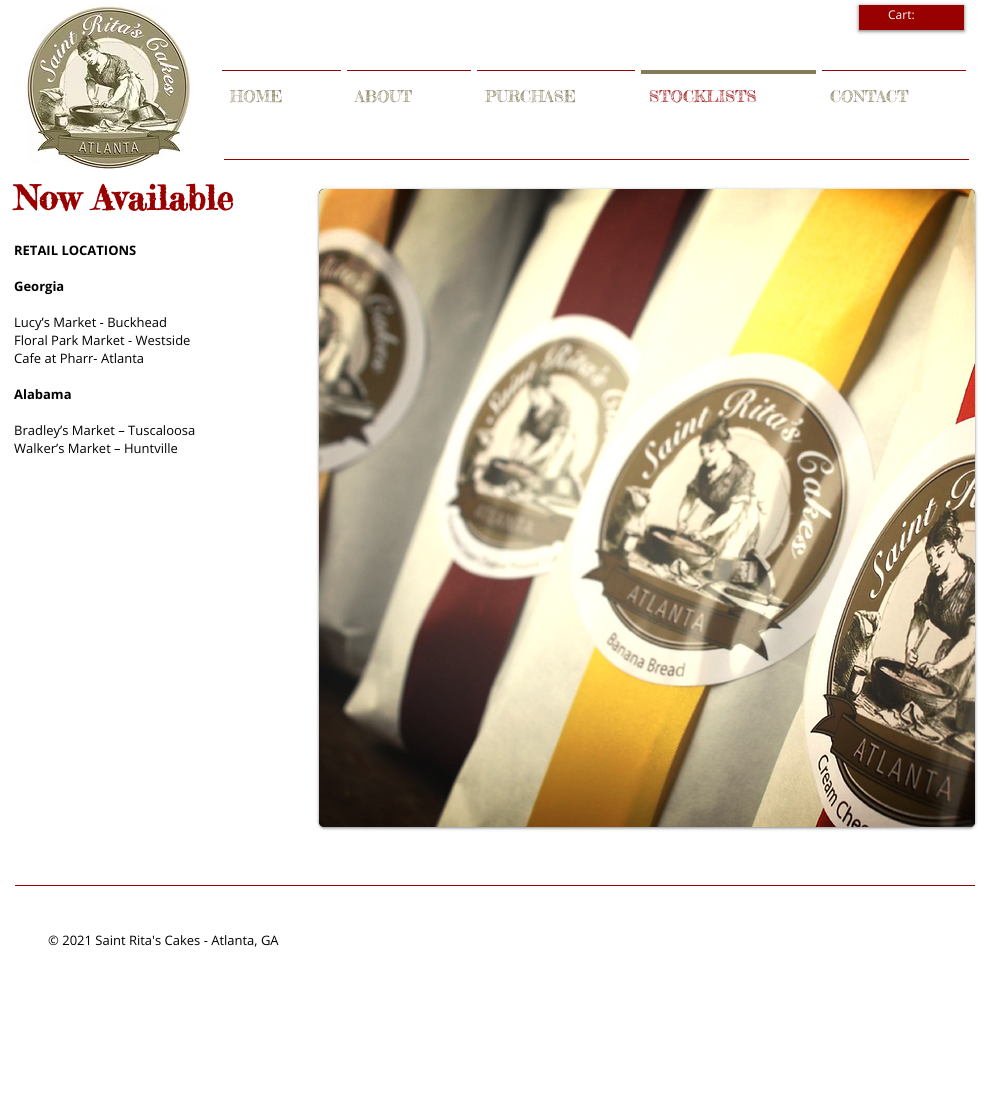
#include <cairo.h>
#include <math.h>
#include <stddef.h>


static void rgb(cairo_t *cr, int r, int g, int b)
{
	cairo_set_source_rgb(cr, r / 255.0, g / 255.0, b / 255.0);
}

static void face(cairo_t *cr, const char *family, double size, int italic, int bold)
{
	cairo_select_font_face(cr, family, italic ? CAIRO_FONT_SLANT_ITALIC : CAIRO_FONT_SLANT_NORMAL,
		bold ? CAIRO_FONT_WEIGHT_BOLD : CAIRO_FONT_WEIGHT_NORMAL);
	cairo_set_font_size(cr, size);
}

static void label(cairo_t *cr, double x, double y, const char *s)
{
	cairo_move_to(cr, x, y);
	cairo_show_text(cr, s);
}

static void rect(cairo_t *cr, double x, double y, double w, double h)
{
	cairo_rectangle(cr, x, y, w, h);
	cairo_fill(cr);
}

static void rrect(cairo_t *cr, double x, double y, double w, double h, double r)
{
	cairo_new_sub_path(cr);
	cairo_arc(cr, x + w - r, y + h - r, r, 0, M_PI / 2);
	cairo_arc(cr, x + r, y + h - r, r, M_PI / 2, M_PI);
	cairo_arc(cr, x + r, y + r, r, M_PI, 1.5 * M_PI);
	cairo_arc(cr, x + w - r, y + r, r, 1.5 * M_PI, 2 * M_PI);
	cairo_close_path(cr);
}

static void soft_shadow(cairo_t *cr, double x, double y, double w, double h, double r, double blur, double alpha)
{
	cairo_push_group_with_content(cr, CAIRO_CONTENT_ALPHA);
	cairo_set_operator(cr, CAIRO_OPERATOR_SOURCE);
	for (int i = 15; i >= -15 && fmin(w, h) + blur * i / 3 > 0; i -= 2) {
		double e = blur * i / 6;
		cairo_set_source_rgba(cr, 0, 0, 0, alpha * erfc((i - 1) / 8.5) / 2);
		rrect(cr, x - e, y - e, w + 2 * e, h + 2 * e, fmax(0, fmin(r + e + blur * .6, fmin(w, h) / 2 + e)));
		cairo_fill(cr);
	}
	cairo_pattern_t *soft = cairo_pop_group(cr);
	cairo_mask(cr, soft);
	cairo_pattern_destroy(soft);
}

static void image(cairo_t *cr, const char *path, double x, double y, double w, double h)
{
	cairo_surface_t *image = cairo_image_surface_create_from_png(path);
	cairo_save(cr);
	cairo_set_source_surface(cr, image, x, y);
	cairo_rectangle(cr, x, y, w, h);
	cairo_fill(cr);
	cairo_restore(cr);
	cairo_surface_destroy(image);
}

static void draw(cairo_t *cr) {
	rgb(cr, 255, 255, 255);
	cairo_paint(cr);
	image(cr, "image0.png", 26, 5, 165, 164);
	rgb(cr, 153, 0, 0);
	rect(cr, 224, 159, 745, 1);
	rgb(cr, 0, 0, 0);
	soft_shadow(cr, 859, 6, 105, 25, 0, 2, 0.6);
	rgb(cr, 153, 0, 0);
	rect(cr, 859, 5, 105, 25);
	face(cr, "Open Sans", 12, 0, 0);
	rgb(cr, 255, 255, 255);
	label(cr, 888, 19, "Cart:");
	rgb(cr, 153, 0, 0);
	rect(cr, 222, 70, 119, 1);
	face(cr, "Fredericka the Great", 16, 0, 0);
	rgb(cr, 132, 122, 87);
	label(cr, 230, 102, "HOME");
	rgb(cr, 153, 0, 0);
	rect(cr, 347, 70, 124, 1);
	rgb(cr, 132, 122, 87);
	label(cr, 355, 102, "ABOUT");
	rgb(cr, 153, 0, 0);
	rect(cr, 477, 70, 158, 1);
	rgb(cr, 132, 122, 87);
	label(cr, 485, 102, "PURCHASE");
	rect(cr, 641, 70, 175, 4);
	rgb(cr, 153, 0, 0);
	label(cr, 649, 102, "STOCKLISTS");
	rect(cr, 822, 70, 144, 1);
	rgb(cr, 132, 122, 87);
	label(cr, 830, 102, "CONTACT");
	face(cr, "Fredericka the Great", 34, 0, 1);
	rgb(cr, 153, 0, 0);
	label(cr, 14, 210, "Now Available");
	rgb(cr, 0, 0, 0);
	soft_shadow(cr, 319, 190, 656, 638, 5, 1.5, 0.5);
	rgb(cr, 0, 0, 0);
	rrect(cr, 319, 189, 656, 638, 5);
	cairo_fill(cr);
	image(cr, "image1.png", 319, 189, 656, 638);
	face(cr, "Open Sans", 13, 0, 1);
	label(cr, 14, 255, "RETAIL LOCATIONS");
	label(cr, 14, 291, "Georgia");
	face(cr, "Open Sans", 13, 0, 0);
	label(cr, 14, 327, "Lucy’s Market - Buckhead");
	label(cr, 14, 345, "Floral Park Market - Westside");
	label(cr, 14, 363, "Cafe at Pharr- Atlanta");
	face(cr, "Open Sans", 13, 0, 1);
	label(cr, 14, 399, "Alabama");
	face(cr, "Open Sans", 13, 0, 0);
	label(cr, 14, 435, "Bradley’s Market – Tuscaloosa");
	label(cr, 14, 453, "Walker’s Market – Huntville");
	rgb(cr, 153, 0, 0);
	rect(cr, 15, 885, 960, 1);
	rgb(cr, 0, 0, 0);
	label(cr, 48, 945, "© 2021 Saint Rita's Cakes - Atlanta, GA");
}

int main(void) {
	cairo_surface_t *surface = cairo_image_surface_create(CAIRO_FORMAT_RGB24, 988, 1096);
	cairo_t *cr = cairo_create(surface);
	cairo_font_options_t *options = cairo_font_options_create();
	cairo_font_options_set_hint_metrics(options, CAIRO_HINT_METRICS_OFF);
	cairo_font_options_set_hint_style(options, CAIRO_HINT_STYLE_NONE);
	cairo_set_font_options(cr, options);
	cairo_set_miter_limit(cr, 4);
	draw(cr);
	cairo_surface_write_to_png(surface, "render.png");
	cairo_font_options_destroy(options);
	cairo_destroy(cr);
	cairo_surface_destroy(surface);
	return 0;
}
